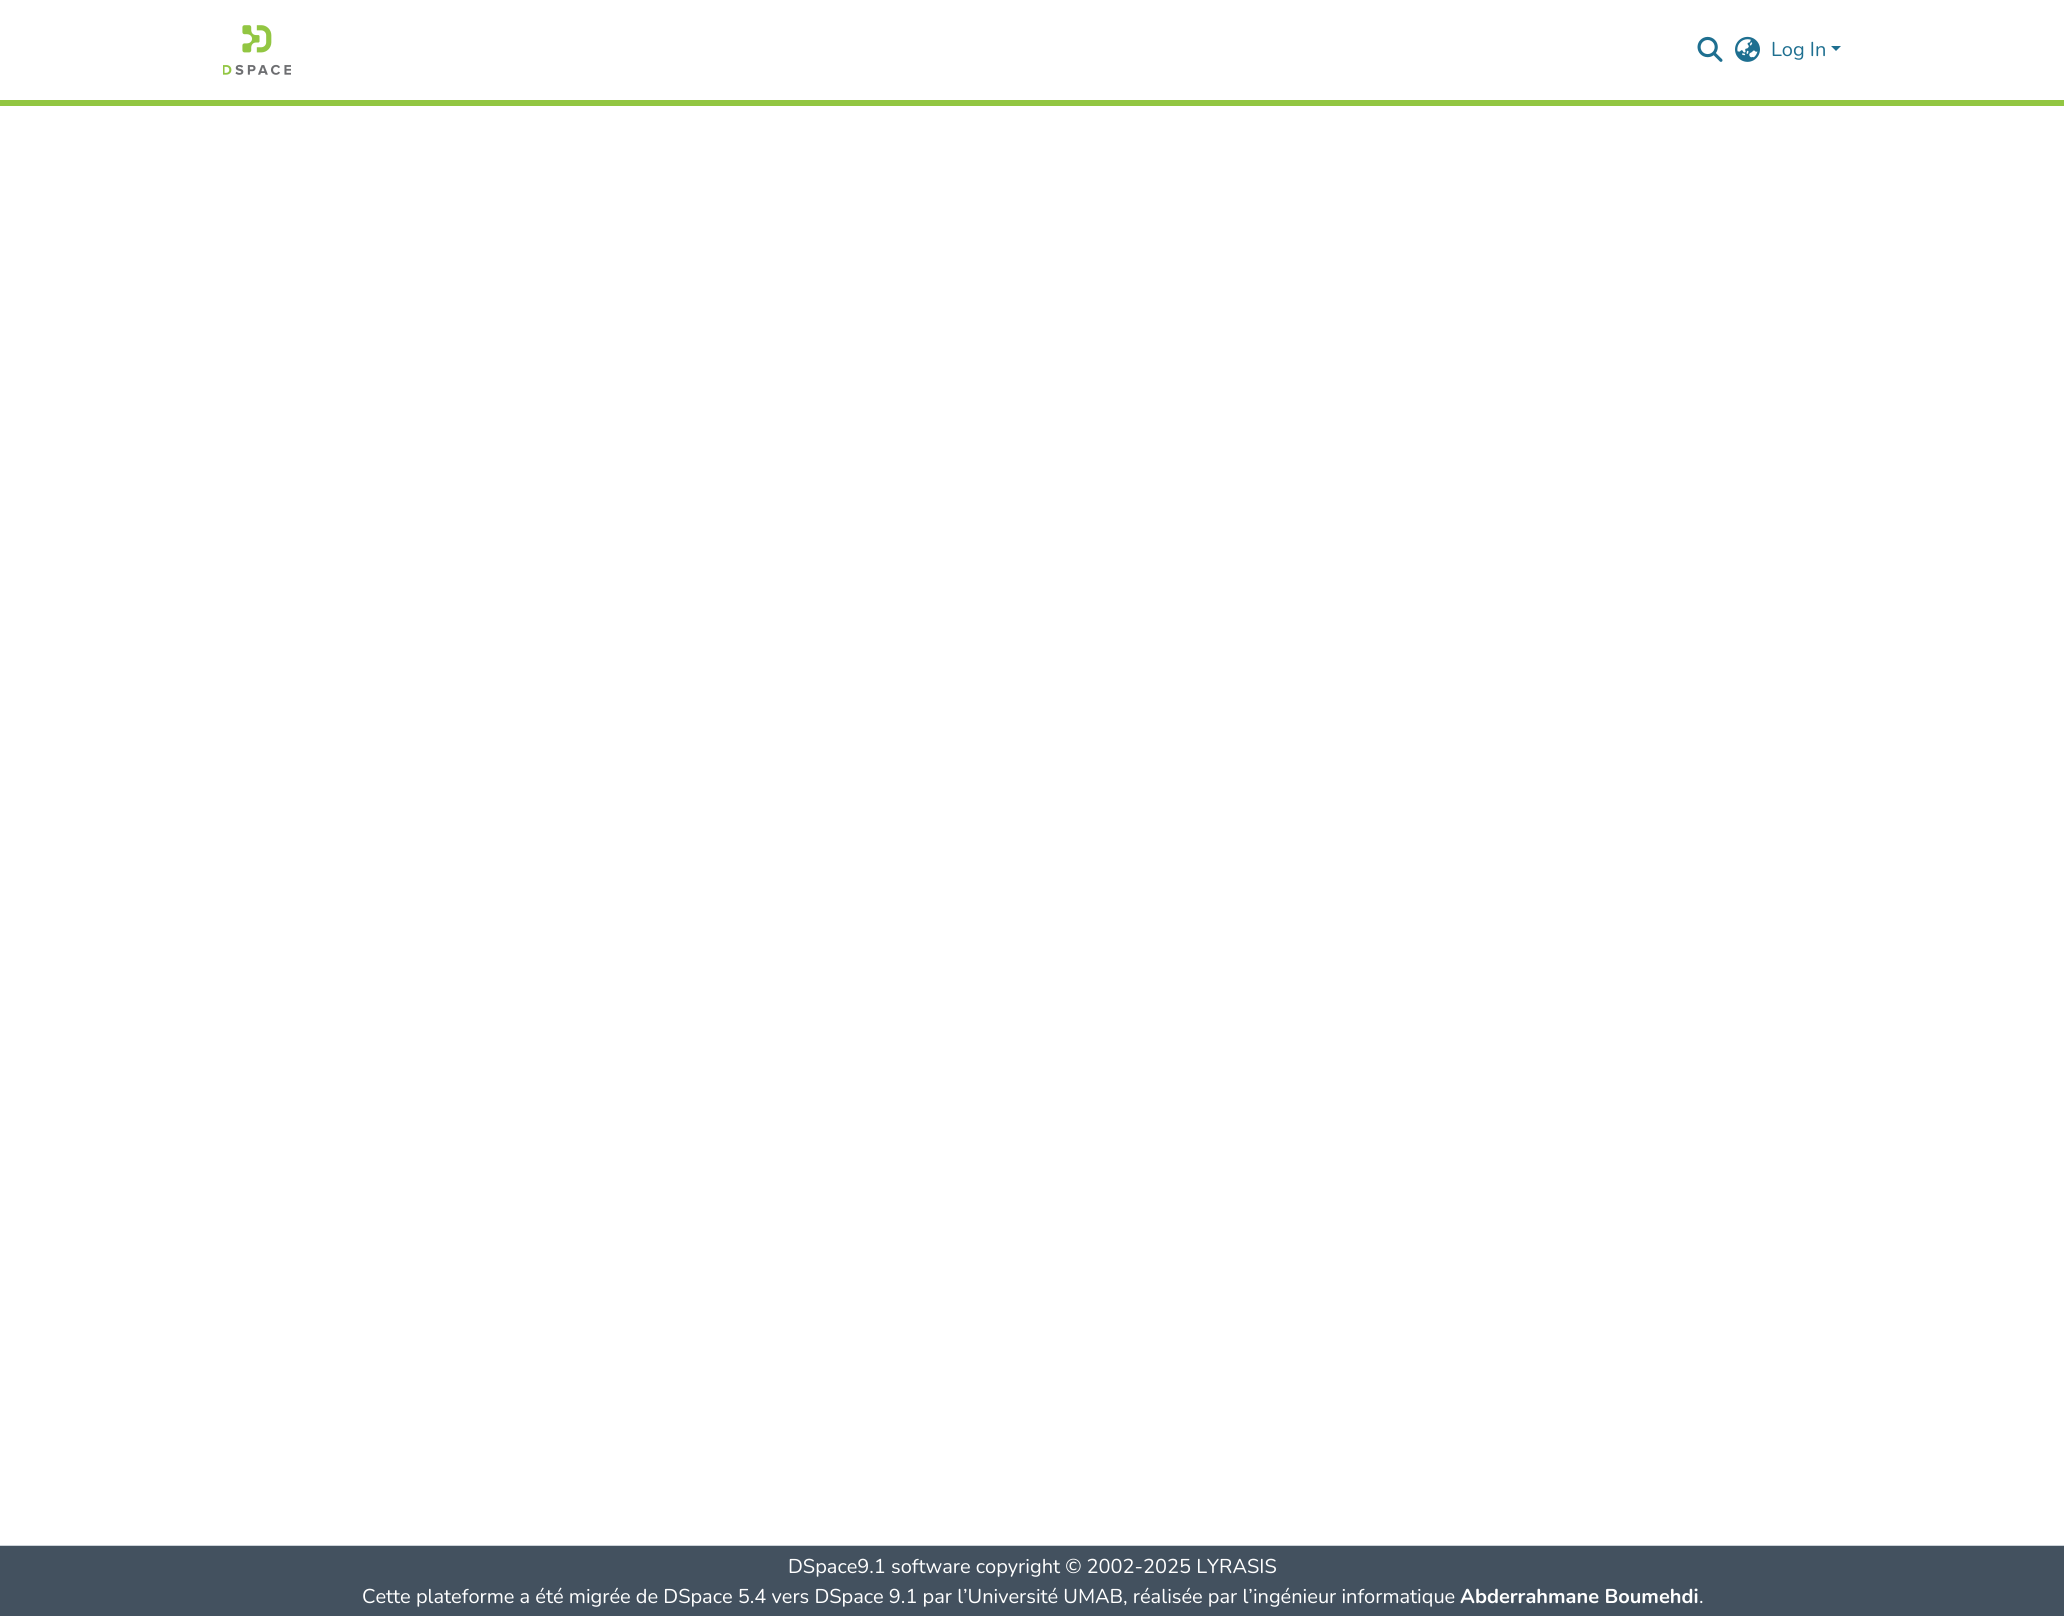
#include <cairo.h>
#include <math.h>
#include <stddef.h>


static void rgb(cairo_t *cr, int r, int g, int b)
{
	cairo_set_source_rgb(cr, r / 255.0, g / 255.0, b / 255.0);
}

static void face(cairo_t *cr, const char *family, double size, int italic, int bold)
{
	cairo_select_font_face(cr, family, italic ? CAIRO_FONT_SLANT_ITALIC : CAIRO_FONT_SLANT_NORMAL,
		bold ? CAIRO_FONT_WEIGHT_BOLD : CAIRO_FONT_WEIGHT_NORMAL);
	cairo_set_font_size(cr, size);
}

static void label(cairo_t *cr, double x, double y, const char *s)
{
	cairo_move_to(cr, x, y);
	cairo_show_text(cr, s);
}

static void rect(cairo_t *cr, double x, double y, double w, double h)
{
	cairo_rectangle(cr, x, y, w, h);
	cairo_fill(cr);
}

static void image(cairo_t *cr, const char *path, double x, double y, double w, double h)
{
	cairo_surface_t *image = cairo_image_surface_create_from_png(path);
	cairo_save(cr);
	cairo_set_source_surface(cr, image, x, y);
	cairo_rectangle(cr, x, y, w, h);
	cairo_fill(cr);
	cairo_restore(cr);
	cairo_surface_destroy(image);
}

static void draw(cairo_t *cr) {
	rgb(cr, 255, 255, 255);
	cairo_paint(cr);
	rgb(cr, 146, 198, 66);
	rect(cr, 0, 100, 2064, 6);
	image(cr, "image0.png", 223, 25, 68, 50);
	image(cr, "image1.png", 1697, 36, 26, 26);
	image(cr, "image2.png", 1735, 36, 25, 26);
	face(cr, "Nunito", 20, 0, 0);
	rgb(cr, 30, 111, 144);
	label(cr, 1771, 56, "Log In");
	cairo_new_path(cr);
	cairo_move_to(cr, 1831, 46);
	cairo_line_to(cr, 1841, 46);
	cairo_line_to(cr, 1836, 51);
	cairo_close_path(cr);
	cairo_fill(cr);
	rgb(cr, 67, 81, 95);
	rect(cr, 0, 1546, 2064, 70);
	rgb(cr, 206, 212, 218);
	rect(cr, 0, 1545, 2064, 1);
	rgb(cr, 255, 255, 255);
	label(cr, 788, 1573, "DSpace9.1 software copyright © 2002-2025 LYRASIS");
	label(cr, 362, 1603, "Cette plateforme a été migrée de DSpace 5.4 vers DSpace 9.1 par l’Université UMAB, réalisée par l’ingénieur informatique");
	face(cr, "Nunito", 20, 0, 1);
	label(cr, 1460, 1603, "Abderrahmane Boumehdi");
	face(cr, "Nunito", 20, 0, 0);
	label(cr, 1699, 1603, ".");
}

int main(void) {
	cairo_surface_t *surface = cairo_image_surface_create(CAIRO_FORMAT_RGB24, 2064, 1616);
	cairo_t *cr = cairo_create(surface);
	cairo_font_options_t *options = cairo_font_options_create();
	cairo_font_options_set_hint_metrics(options, CAIRO_HINT_METRICS_OFF);
	cairo_font_options_set_hint_style(options, CAIRO_HINT_STYLE_NONE);
	cairo_set_font_options(cr, options);
	cairo_set_miter_limit(cr, 4);
	draw(cr);
	cairo_surface_write_to_png(surface, "render.png");
	cairo_font_options_destroy(options);
	cairo_destroy(cr);
	cairo_surface_destroy(surface);
	return 0;
}
